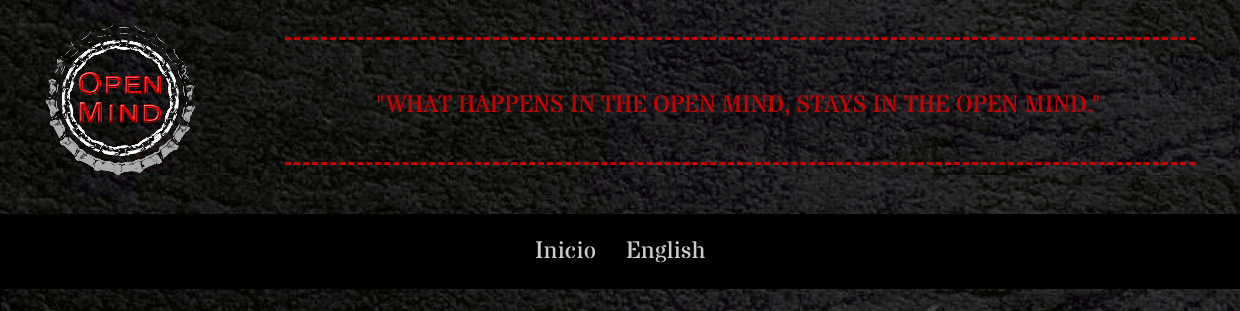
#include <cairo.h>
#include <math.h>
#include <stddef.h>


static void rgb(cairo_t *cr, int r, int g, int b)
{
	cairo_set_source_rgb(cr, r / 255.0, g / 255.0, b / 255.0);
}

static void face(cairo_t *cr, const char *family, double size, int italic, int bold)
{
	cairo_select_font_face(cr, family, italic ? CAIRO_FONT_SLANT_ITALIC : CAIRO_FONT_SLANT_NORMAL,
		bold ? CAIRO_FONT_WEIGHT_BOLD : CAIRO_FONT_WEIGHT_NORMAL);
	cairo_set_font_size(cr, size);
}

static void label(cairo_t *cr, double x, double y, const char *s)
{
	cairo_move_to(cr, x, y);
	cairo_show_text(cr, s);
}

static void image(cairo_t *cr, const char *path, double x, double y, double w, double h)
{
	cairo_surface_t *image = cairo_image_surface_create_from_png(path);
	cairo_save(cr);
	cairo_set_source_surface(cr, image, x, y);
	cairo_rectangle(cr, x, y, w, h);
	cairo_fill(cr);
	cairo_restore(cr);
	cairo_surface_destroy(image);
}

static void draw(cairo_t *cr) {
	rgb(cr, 0, 0, 0);
	cairo_paint(cr);
	image(cr, "image0.png", 0, 0, 1240, 214);
	image(cr, "image1.png", 46, 25, 149, 150);
	cairo_new_path(cr);
	cairo_move_to(cr, 285, 38.5);
	cairo_line_to(cr, 1195, 38.5);
	rgb(cr, 199, 0, 0);
	cairo_set_line_width(cr, 3);
	cairo_set_dash(cr, (double[]){6, 3.04}, 2, 0);
	cairo_stroke(cr);
	cairo_new_path(cr);
	cairo_move_to(cr, 285, 163.5);
	cairo_line_to(cr, 1195, 163.5);
	cairo_stroke(cr);
	face(cr, "Stardos Stencil", 24, 0, 0);
	label(cr, 377, 112, "\"WHAT HAPPENS IN THE OPEN MIND, STAYS IN THE OPEN MIND.\"");
	rgb(cr, 204, 204, 204);
	label(cr, 535, 258, "Inicio");
	label(cr, 626, 258, "English");
	image(cr, "image2.png", 1, 289, 1239, 22);
}

int main(void) {
	cairo_surface_t *surface = cairo_image_surface_create(CAIRO_FORMAT_RGB24, 1240, 311);
	cairo_t *cr = cairo_create(surface);
	cairo_font_options_t *options = cairo_font_options_create();
	cairo_font_options_set_hint_metrics(options, CAIRO_HINT_METRICS_OFF);
	cairo_font_options_set_hint_style(options, CAIRO_HINT_STYLE_NONE);
	cairo_set_font_options(cr, options);
	cairo_set_miter_limit(cr, 4);
	draw(cr);
	cairo_surface_write_to_png(surface, "render.png");
	cairo_font_options_destroy(options);
	cairo_destroy(cr);
	cairo_surface_destroy(surface);
	return 0;
}
